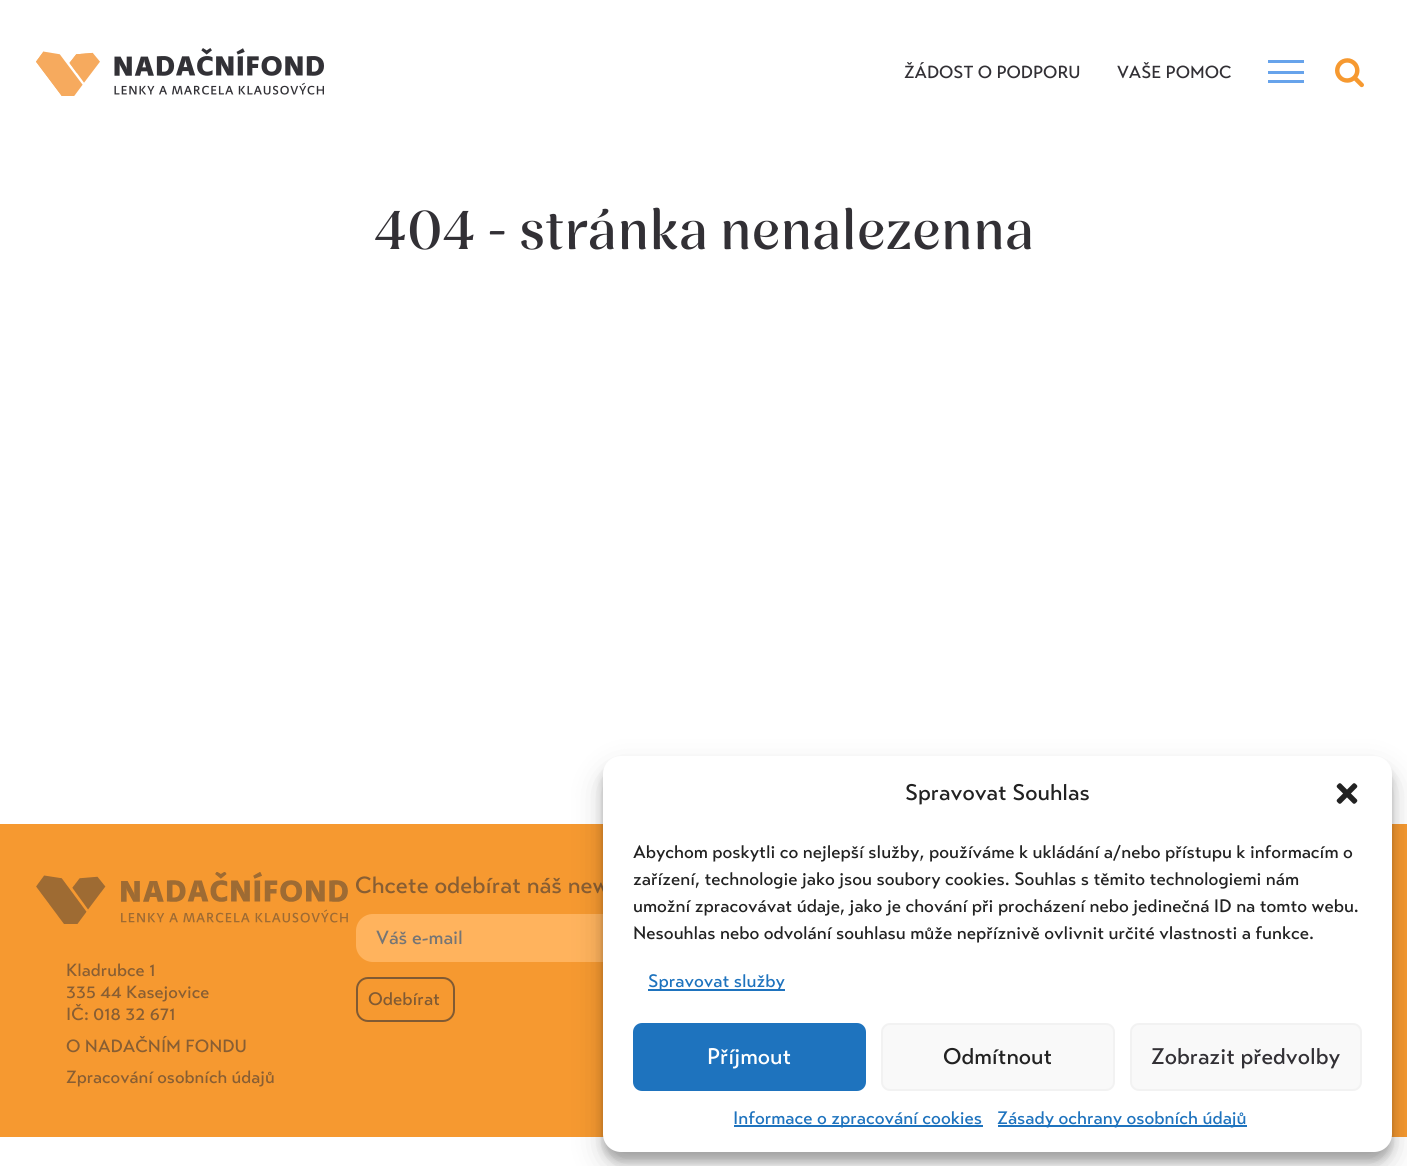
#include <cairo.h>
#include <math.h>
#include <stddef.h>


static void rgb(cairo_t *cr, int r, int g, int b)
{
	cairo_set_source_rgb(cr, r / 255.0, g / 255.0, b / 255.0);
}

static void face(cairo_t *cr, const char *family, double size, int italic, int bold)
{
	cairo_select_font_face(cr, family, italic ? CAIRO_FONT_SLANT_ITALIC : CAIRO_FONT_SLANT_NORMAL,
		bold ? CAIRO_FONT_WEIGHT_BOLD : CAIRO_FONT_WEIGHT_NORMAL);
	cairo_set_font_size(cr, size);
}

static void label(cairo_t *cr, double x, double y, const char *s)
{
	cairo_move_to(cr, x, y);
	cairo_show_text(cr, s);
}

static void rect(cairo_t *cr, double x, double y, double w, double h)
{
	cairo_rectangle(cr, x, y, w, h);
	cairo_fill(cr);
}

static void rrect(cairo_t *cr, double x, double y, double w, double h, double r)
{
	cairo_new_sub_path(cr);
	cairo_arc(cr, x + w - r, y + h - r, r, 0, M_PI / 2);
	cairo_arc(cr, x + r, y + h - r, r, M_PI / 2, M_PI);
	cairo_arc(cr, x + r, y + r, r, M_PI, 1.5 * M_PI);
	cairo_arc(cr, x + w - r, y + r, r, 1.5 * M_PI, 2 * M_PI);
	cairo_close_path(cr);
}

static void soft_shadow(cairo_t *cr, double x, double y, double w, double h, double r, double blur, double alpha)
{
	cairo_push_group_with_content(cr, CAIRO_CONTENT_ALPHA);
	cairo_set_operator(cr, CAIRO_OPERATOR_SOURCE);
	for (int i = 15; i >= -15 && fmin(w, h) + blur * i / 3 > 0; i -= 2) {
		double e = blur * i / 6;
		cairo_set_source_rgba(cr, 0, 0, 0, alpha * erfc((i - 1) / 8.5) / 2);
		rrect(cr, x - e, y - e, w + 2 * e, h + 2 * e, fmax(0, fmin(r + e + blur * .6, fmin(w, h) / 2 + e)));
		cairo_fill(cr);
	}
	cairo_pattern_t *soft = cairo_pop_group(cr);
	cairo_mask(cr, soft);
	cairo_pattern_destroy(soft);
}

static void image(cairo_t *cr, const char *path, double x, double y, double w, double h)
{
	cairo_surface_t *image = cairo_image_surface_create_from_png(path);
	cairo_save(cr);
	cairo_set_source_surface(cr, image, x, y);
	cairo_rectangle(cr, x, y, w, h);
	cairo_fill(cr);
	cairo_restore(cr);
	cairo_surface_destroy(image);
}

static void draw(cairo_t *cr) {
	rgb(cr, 255, 255, 255);
	cairo_paint(cr);
	image(cr, "image0.png", 36, 48, 288, 48);
	face(cr, "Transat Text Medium", 17.4, 0, 0);
	rgb(cr, 50, 48, 53);
	label(cr, 904, 78, "ŽÁDOST O PODPORU");
	label(cr, 1117, 78, "VAŠE POMOC");
	rgb(cr, 103, 163, 235);
	rect(cr, 1268, 60, 36, 3);
	rect(cr, 1268, 71, 36, 3);
	rect(cr, 1268, 80, 36, 3);
	image(cr, "image1.png", 1335, 58, 29, 30);
	face(cr, "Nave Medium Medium", 54.4, 0, 0);
	rgb(cr, 50, 48, 53);
	label(cr, 374, 249, "404 - stránka nenalezenna");
	rgb(cr, 246, 153, 48);
	rect(cr, 0, 824, 1407, 313);
	face(cr, "Transat Text Medium", 23.25, 0, 0);
	rgb(cr, 136, 94, 51);
	label(cr, 355, 893, "Chcete odebírat náš new");
	rgb(cr, 255, 179, 93);
	rrect(cr, 356, 914, 330, 48, 17);
	cairo_fill(cr);
	face(cr, "Transat Text Medium", 19, 0, 0);
	rgb(cr, 117, 117, 117);
	label(cr, 376, 944, "Váš e-mail");
	rrect(cr, 357, 978, 97, 43, 11);
	rgb(cr, 128, 90, 51);
	cairo_stroke(cr);
	face(cr, "Transat Text Medium", 18, 0, 0);
	label(cr, 368, 1005, "Odebírat");
	image(cr, "image2.png", 36, 872, 312, 52);
	face(cr, "Transat Text Medium", 17.6, 0, 0);
	rgb(cr, 136, 94, 51);
	label(cr, 66, 976, "Kladrubce 1");
	label(cr, 66, 998, "335 44 Kasejovice");
	label(cr, 66, 1020, "IČ: 018 32 671");
	label(cr, 66, 1052, "O NADAČNÍM FONDU");
	label(cr, 66, 1083, "Zpracování osobních údajů");
	rgb(cr, 0, 0, 0);
	soft_shadow(cr, 603, 765, 789, 396, 18, 4.5, 0.23);
	soft_shadow(cr, 603, 771, 789, 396, 18, 15, 0.19);
	rgb(cr, 255, 255, 255);
	rrect(cr, 603, 756, 789, 396, 18);
	cairo_fill(cr);
	face(cr, "Transat Text Medium", 22.5, 0, 0);
	rgb(cr, 34, 34, 34);
	label(cr, 905, 800, "Spravovat Souhlas");
	image(cr, "image3.png", 1336, 783, 22, 21);
	face(cr, "Transat Text Medium", 18, 0, 0);
	label(cr, 633, 858, "Abychom poskytli co nejlepší služby, používáme k ukládání a/nebo přístupu k informacím o");
	label(cr, 633, 885, "zařízení, technologie jako jsou soubory cookies. Souhlas s těmito technologiemi nám");
	label(cr, 633, 912, "umožní zpracovávat údaje, jako je chování při procházení nebo jedinečná ID na tomto webu.");
	label(cr, 633, 939, "Nesouhlas nebo odvolání souhlasu může nepříznivě ovlivnit určité vlastnosti a funkce.");
	rgb(cr, 30, 115, 190);
	rect(cr, 648, 989, 137, 2);
	label(cr, 648, 987, "Spravovat služby");
	rrect(cr, 634, 1024, 231, 66, 8);
	cairo_fill_preserve(cr);
	cairo_stroke(cr);
	face(cr, "Transat Text Medium", 22.5, 0, 0);
	rgb(cr, 255, 255, 255);
	label(cr, 707, 1064, "Příjmout");
	rgb(cr, 249, 249, 249);
	rrect(cr, 882, 1024, 232, 66, 8);
	cairo_fill_preserve(cr);
	rgb(cr, 242, 242, 242);
	cairo_stroke(cr);
	rgb(cr, 34, 34, 34);
	label(cr, 943, 1064, "Odmítnout");
	rgb(cr, 249, 249, 249);
	rrect(cr, 1131, 1024, 230, 66, 8);
	cairo_fill_preserve(cr);
	rgb(cr, 242, 242, 242);
	cairo_stroke(cr);
	rgb(cr, 50, 48, 53);
	label(cr, 1151, 1064, "Zobrazit předvolby");
	rgb(cr, 30, 115, 190);
	rect(cr, 734, 1125, 249, 2);
	face(cr, "Transat Text Medium", 18, 0, 0);
	label(cr, 733, 1124, "Informace o zpracování cookies");
	rect(cr, 998, 1125, 249, 2);
	label(cr, 997, 1124, "Zásady ochrany osobních údajů");
}

int main(void) {
	cairo_surface_t *surface = cairo_image_surface_create(CAIRO_FORMAT_RGB24, 1407, 1166);
	cairo_t *cr = cairo_create(surface);
	cairo_font_options_t *options = cairo_font_options_create();
	cairo_font_options_set_hint_metrics(options, CAIRO_HINT_METRICS_OFF);
	cairo_font_options_set_hint_style(options, CAIRO_HINT_STYLE_NONE);
	cairo_set_font_options(cr, options);
	cairo_set_miter_limit(cr, 4);
	draw(cr);
	cairo_surface_write_to_png(surface, "render.png");
	cairo_font_options_destroy(options);
	cairo_destroy(cr);
	cairo_surface_destroy(surface);
	return 0;
}
